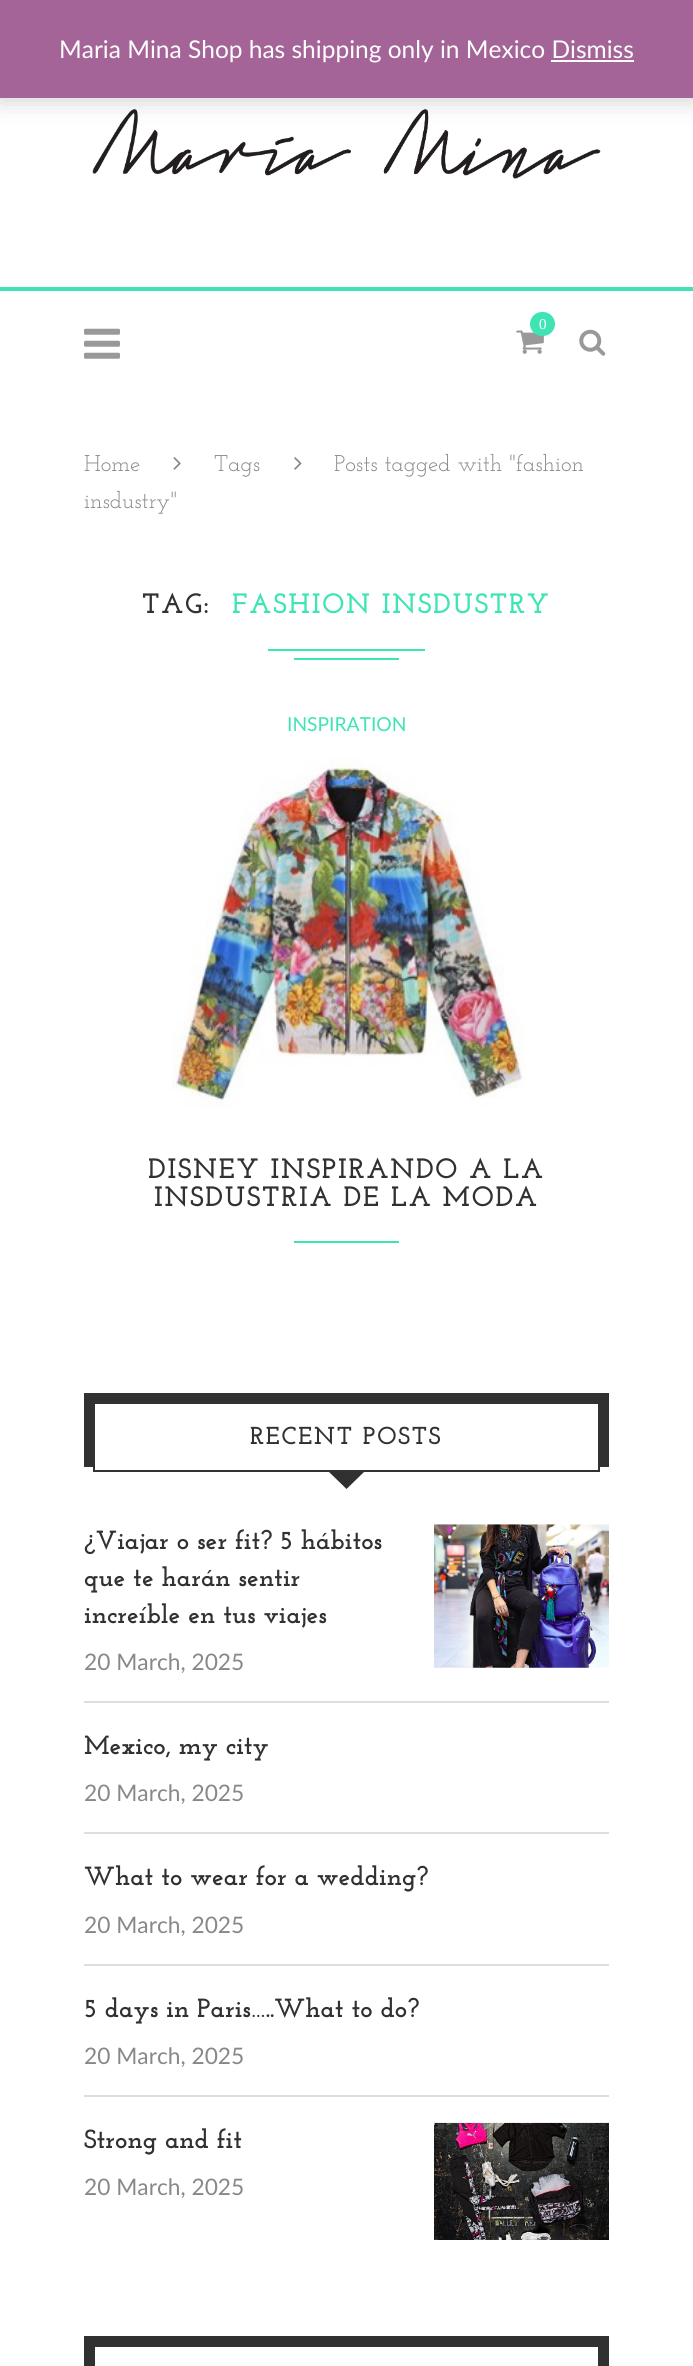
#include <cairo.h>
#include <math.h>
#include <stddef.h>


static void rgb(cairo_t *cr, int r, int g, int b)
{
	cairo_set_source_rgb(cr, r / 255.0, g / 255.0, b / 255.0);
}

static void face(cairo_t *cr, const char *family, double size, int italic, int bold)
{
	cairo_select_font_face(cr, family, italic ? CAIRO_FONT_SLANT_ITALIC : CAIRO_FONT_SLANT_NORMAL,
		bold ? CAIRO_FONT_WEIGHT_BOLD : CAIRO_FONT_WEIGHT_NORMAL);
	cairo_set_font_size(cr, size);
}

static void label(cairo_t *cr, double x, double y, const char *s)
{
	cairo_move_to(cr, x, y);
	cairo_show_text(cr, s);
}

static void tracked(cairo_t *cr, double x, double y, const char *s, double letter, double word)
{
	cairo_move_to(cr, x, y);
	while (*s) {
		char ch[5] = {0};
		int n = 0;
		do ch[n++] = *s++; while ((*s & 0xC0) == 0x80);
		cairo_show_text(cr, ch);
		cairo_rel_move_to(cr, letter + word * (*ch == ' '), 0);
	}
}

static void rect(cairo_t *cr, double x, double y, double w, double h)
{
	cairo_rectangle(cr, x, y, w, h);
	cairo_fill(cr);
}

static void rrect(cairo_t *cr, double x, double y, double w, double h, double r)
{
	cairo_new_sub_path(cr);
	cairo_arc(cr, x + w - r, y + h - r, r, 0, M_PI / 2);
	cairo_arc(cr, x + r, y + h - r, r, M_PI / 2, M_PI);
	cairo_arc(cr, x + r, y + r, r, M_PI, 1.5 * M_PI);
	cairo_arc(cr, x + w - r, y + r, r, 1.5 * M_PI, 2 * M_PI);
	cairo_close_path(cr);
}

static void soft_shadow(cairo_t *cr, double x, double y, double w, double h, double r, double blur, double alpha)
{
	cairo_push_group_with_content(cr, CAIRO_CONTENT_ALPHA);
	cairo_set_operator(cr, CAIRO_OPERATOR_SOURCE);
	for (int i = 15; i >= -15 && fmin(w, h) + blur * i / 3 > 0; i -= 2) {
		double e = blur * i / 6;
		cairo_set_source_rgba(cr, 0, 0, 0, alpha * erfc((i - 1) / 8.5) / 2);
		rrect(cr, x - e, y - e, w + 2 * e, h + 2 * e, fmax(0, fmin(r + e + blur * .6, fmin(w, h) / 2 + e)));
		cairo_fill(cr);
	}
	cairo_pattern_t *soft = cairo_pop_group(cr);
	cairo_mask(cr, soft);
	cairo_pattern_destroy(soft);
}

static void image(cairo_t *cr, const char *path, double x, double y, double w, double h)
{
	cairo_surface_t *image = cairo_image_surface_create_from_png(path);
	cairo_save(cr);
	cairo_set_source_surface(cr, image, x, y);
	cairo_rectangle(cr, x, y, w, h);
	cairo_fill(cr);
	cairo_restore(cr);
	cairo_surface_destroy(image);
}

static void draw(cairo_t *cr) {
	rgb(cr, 255, 255, 255);
	cairo_paint(cr);
	image(cr, "image0.png", 92, 109, 509, 70);
	rgb(cr, 0, 0, 0);
	soft_shadow(cr, 0, 2, 693, 98, 0, 12, 0.2);
	rgb(cr, 164, 100, 151);
	rect(cr, 0, 0, 693, 98);
	face(cr, "Lato", 24.5, 0, 0);
	rgb(cr, 255, 255, 255);
	label(cr, 59, 58, "Maria Mina Shop has shipping only in Mexico Dismiss");
	rect(cr, 551, 60, 83, 2);
	rgb(cr, 62, 228, 180);
	rect(cr, 0, 287, 693, 4);
	image(cr, "image1.png", 516, 330, 28, 24);
	rrect(cr, 530, 312, 25, 24, 12);
	cairo_fill(cr);
	face(cr, "PT Serif", 14, 0, 0);
	rgb(cr, 255, 255, 255);
	label(cr, 539, 329, "0");
	image(cr, "image2.png", 84, 328, 36, 31);
	image(cr, "image3.png", 579, 329, 27, 27);
	face(cr, "Josefin Slab", 22.75, 0, 0);
	rgb(cr, 136, 136, 136);
	label(cr, 84, 471, "Home");
	image(cr, "image4.png", 173, 457, 8, 13);
	label(cr, 214, 471, "Tags");
	image(cr, "image5.png", 294, 457, 8, 13);
	label(cr, 334, 471, "Posts tagged with \"fashion");
	label(cr, 84, 508, "insdustry\"");
	face(cr, "Josefin Slab", 28, 0, 1);
	rgb(cr, 49, 49, 49);
	tracked(cr, 142, 613, "TAG:", 1.75, 0);
	rgb(cr, 62, 228, 180);
	tracked(cr, 232, 613, "FASHION INSDUSTRY", 1.75, 0);
	rect(cr, 268, 649, 157, 2);
	rect(cr, 294, 658, 105, 2);
	face(cr, "Lato", 19.25, 0, 0);
	label(cr, 287, 731, "INSPIRATION");
	image(cr, "image6.png", 172, 758, 354, 350);
	face(cr, "Josefin Slab", 28, 0, 1);
	rgb(cr, 49, 49, 49);
	tracked(cr, 148, 1178, "DISNEY INSPIRANDO A LA", 1.75, 0);
	tracked(cr, 154, 1206, "INSDUSTRIA DE LA MODA", 1.75, 0);
	rgb(cr, 62, 228, 180);
	rect(cr, 294, 1241, 105, 2);
	rgb(cr, 49, 49, 49);
	rect(cr, 84, 1393, 525, 74);
	rgb(cr, 255, 255, 255);
	rect(cr, 95, 1404, 503, 63);
	cairo_rectangle(cr, 94, 1403, 505, 68);
	rgb(cr, 49, 49, 49);
	cairo_stroke(cr);
	face(cr, "Josefin Slab", 24.5, 0, 1);
	tracked(cr, 250, 1444, "RECENT POSTS", 1.75, 0);
	cairo_new_path(cr);
	cairo_move_to(cr, 329, 1472);
	cairo_line_to(cr, 364, 1472);
	cairo_line_to(cr, 346.5, 1489);
	cairo_close_path(cr);
	cairo_fill(cr);
	rgb(cr, 222, 222, 222);
	rect(cr, 84, 1701, 525, 2);
	face(cr, "Josefin Slab", 26.25, 0, 1);
	rgb(cr, 49, 49, 49);
	label(cr, 84, 1549, "¿Viajar o ser fit? 5 hábitos");
	label(cr, 84, 1586, "que te harán sentir");
	label(cr, 84, 1623, "increíble en tus viajes");
	face(cr, "Lato", 22.75, 0, 0);
	rgb(cr, 136, 136, 136);
	label(cr, 84, 1670, "20 March, 2025");
	image(cr, "image7.png", 434, 1524, 175, 144);
	rgb(cr, 222, 222, 222);
	rect(cr, 84, 1832, 525, 2);
	face(cr, "Josefin Slab", 26.25, 0, 1);
	rgb(cr, 49, 49, 49);
	label(cr, 84, 1754, "Mexico, my city");
	face(cr, "Lato", 22.75, 0, 0);
	rgb(cr, 136, 136, 136);
	label(cr, 84, 1801, "20 March, 2025");
	rgb(cr, 222, 222, 222);
	rect(cr, 84, 1964, 525, 2);
	face(cr, "Josefin Slab", 26.25, 0, 1);
	rgb(cr, 49, 49, 49);
	label(cr, 84, 1885, "What to wear for a wedding?");
	face(cr, "Lato", 22.75, 0, 0);
	rgb(cr, 136, 136, 136);
	label(cr, 84, 1933, "20 March, 2025");
	rgb(cr, 222, 222, 222);
	rect(cr, 84, 2095, 525, 2);
	face(cr, "Josefin Slab", 26.25, 0, 1);
	rgb(cr, 49, 49, 49);
	label(cr, 84, 2017, "5 days in Paris…..What to do?");
	face(cr, "Lato", 22.75, 0, 0);
	rgb(cr, 136, 136, 136);
	label(cr, 84, 2064, "20 March, 2025");
	face(cr, "Josefin Slab", 26.25, 0, 1);
	rgb(cr, 49, 49, 49);
	label(cr, 84, 2148, "Strong and fit");
	face(cr, "Lato", 22.75, 0, 0);
	rgb(cr, 136, 136, 136);
	label(cr, 84, 2195, "20 March, 2025");
	image(cr, "image8.png", 434, 2122, 175, 118);
	rgb(cr, 49, 49, 49);
	rect(cr, 84, 2336, 525, 30);
	rgb(cr, 255, 255, 255);
	rect(cr, 95, 2347, 503, 19);
}

int main(void) {
	cairo_surface_t *surface = cairo_image_surface_create(CAIRO_FORMAT_RGB24, 693, 2366);
	cairo_t *cr = cairo_create(surface);
	cairo_font_options_t *options = cairo_font_options_create();
	cairo_font_options_set_hint_metrics(options, CAIRO_HINT_METRICS_OFF);
	cairo_font_options_set_hint_style(options, CAIRO_HINT_STYLE_NONE);
	cairo_set_font_options(cr, options);
	cairo_set_miter_limit(cr, 4);
	draw(cr);
	cairo_surface_write_to_png(surface, "render.png");
	cairo_font_options_destroy(options);
	cairo_destroy(cr);
	cairo_surface_destroy(surface);
	return 0;
}
